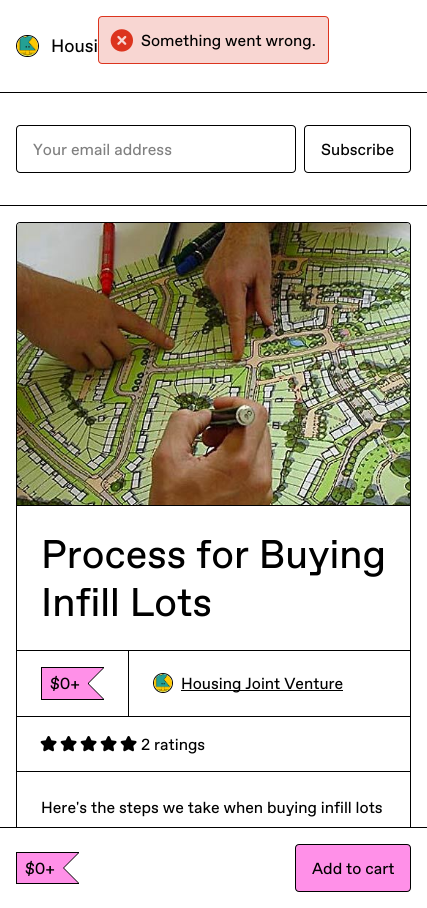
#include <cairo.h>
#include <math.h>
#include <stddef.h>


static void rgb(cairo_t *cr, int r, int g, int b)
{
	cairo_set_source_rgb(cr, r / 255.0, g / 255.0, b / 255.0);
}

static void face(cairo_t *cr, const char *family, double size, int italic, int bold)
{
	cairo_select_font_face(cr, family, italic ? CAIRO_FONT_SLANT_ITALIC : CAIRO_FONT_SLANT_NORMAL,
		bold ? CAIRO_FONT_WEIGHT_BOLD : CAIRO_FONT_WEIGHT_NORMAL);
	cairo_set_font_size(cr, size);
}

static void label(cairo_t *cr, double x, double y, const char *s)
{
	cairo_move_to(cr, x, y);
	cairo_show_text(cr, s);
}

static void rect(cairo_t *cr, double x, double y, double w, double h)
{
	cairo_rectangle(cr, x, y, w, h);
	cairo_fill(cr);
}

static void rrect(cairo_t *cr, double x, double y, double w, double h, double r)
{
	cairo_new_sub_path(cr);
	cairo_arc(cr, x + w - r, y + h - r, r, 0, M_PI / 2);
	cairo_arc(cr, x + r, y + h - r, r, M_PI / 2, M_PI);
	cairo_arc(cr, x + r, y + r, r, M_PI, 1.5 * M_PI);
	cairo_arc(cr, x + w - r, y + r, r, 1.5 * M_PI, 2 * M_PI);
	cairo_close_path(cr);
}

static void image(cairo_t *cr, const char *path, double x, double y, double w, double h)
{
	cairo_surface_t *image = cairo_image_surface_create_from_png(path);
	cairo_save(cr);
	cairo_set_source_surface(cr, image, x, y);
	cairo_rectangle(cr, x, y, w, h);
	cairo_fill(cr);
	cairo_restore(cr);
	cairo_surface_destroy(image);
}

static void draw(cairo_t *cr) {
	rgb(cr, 255, 255, 255);
	cairo_paint(cr);
	rgb(cr, 248, 214, 210);
	rrect(cr, 98.5, 16.5, 230, 47, 3.5);
	cairo_fill_preserve(cr);
	rgb(cr, 220, 52, 30);
	cairo_set_line_width(cr, 1);
	cairo_stroke(cr);
	image(cr, "image0.png", 110, 29, 23, 23);
	face(cr, "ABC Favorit", 16, 0, 0);
	rgb(cr, 0, 0, 0);
	label(cr, 141, 46, "Something went wrong.");
	rect(cr, 0, 92, 427, 1);
	rrect(cr, 16.5, 35.5, 22, 21, 10.5);
	cairo_stroke(cr);
	image(cr, "image1.png", 17, 36, 21, 20);
	face(cr, "ABC Favorit", 18, 0, 0);
	label(cr, 51, 52, "Housi");
	rect(cr, 0, 205, 427, 1);
	rrect(cr, 16.5, 125.5, 279, 47, 3.5);
	cairo_stroke(cr);
	face(cr, "ABC Favorit", 16, 0, 0);
	rgb(cr, 128, 128, 128);
	label(cr, 33, 155, "Your email address");
	rrect(cr, 304.5, 125.5, 106, 47, 3.5);
	rgb(cr, 0, 0, 0);
	cairo_stroke(cr);
	label(cr, 321, 155, "Subscribe");
	rrect(cr, 16.5, 222.5, 394, 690, 3.5);
	cairo_stroke(cr);
	rect(cr, 17, 505, 393, 1);
	image(cr, "image2.png", 17, 223, 393, 282);
	face(cr, "ABC Favorit", 40, 0, 0);
	label(cr, 41, 568, "Process for Buying");
	label(cr, 41, 616, "Infill Lots");
	cairo_rectangle(cr, 16.5, 650.5, 112, 66);
	cairo_stroke(cr);
	rect(cr, 41, 667, 63, 1);
	rect(cr, 41, 699, 63, 1);
	rect(cr, 41, 667, 1, 33);
	rgb(cr, 255, 144, 232);
	rect(cr, 42, 668, 46, 31);
	rgb(cr, 0, 0, 0);
	cairo_new_path(cr);
	cairo_move_to(cr, 88, 668);
	cairo_line_to(cr, 104, 668);
	cairo_line_to(cr, 89, 683);
	cairo_close_path(cr);
	cairo_move_to(cr, 104, 699);
	cairo_line_to(cr, 88, 699);
	cairo_line_to(cr, 89, 684);
	cairo_close_path(cr);
	cairo_fill(cr);
	rect(cr, 88, 682, 1, 3);
	rgb(cr, 255, 144, 232);
	cairo_new_path(cr);
	cairo_move_to(cr, 87, 668);
	cairo_line_to(cr, 103, 668);
	cairo_line_to(cr, 88, 683);
	cairo_close_path(cr);
	cairo_move_to(cr, 103, 699);
	cairo_line_to(cr, 87, 699);
	cairo_line_to(cr, 88, 684);
	cairo_close_path(cr);
	cairo_fill(cr);
	face(cr, "ABC Favorit", 16, 0, 0);
	rgb(cr, 0, 0, 0);
	label(cr, 50, 689, "$0+");
	cairo_rectangle(cr, 128.5, 650.5, 282, 66);
	cairo_stroke(cr);
	cairo_arc(cr, 163, 683, 9.5, 0, 2 * M_PI);
	cairo_stroke(cr);
	image(cr, "image3.png", 154, 674, 18, 18);
	rect(cr, 181, 690, 162, 1);
	label(cr, 181, 689, "Housing Joint Venture");
	image(cr, "image4.png", 40, 736, 17, 16);
	image(cr, "image4.png", 60, 736, 17, 16);
	image(cr, "image4.png", 80, 736, 17, 16);
	image(cr, "image4.png", 100, 736, 17, 16);
	image(cr, "image4.png", 120, 736, 17, 16);
	label(cr, 141, 750, "2 ratings");
	rect(cr, 17, 771, 393, 1);
	label(cr, 41, 813, "Here's the steps we take when buying infill lots");
	rect(cr, 0, 827, 427, 1);
	rgb(cr, 255, 255, 255);
	rect(cr, 16, 828, 395, 80);
	rgb(cr, 0, 0, 0);
	rect(cr, 16, 852, 63, 1);
	rect(cr, 16, 883, 63, 1);
	rect(cr, 16, 852, 1, 32);
	rgb(cr, 255, 144, 232);
	rect(cr, 17, 853, 46, 30);
	rgb(cr, 0, 0, 0);
	cairo_new_path(cr);
	cairo_move_to(cr, 63, 853);
	cairo_line_to(cr, 79, 853);
	cairo_line_to(cr, 64, 868);
	cairo_close_path(cr);
	cairo_move_to(cr, 79, 883);
	cairo_line_to(cr, 63, 883);
	cairo_line_to(cr, 64, 868);
	cairo_close_path(cr);
	cairo_fill(cr);
	rect(cr, 63, 867, 1, 2);
	rgb(cr, 255, 144, 232);
	cairo_new_path(cr);
	cairo_move_to(cr, 62, 853);
	cairo_line_to(cr, 78, 853);
	cairo_line_to(cr, 63, 868);
	cairo_close_path(cr);
	cairo_move_to(cr, 78, 883);
	cairo_line_to(cr, 62, 883);
	cairo_line_to(cr, 63, 868);
	cairo_close_path(cr);
	cairo_fill(cr);
	rgb(cr, 0, 0, 0);
	label(cr, 25, 874, "$0+");
	rgb(cr, 255, 144, 232);
	rrect(cr, 295.5, 844.5, 115, 47, 3.5);
	cairo_fill_preserve(cr);
	rgb(cr, 0, 0, 0);
	cairo_stroke(cr);
	label(cr, 312, 874, "Add to cart");
}

int main(void) {
	cairo_surface_t *surface = cairo_image_surface_create(CAIRO_FORMAT_RGB24, 427, 908);
	cairo_t *cr = cairo_create(surface);
	cairo_font_options_t *options = cairo_font_options_create();
	cairo_font_options_set_hint_metrics(options, CAIRO_HINT_METRICS_OFF);
	cairo_font_options_set_hint_style(options, CAIRO_HINT_STYLE_NONE);
	cairo_set_font_options(cr, options);
	cairo_set_miter_limit(cr, 4);
	draw(cr);
	cairo_surface_write_to_png(surface, "render.png");
	cairo_font_options_destroy(options);
	cairo_destroy(cr);
	cairo_surface_destroy(surface);
	return 0;
}
